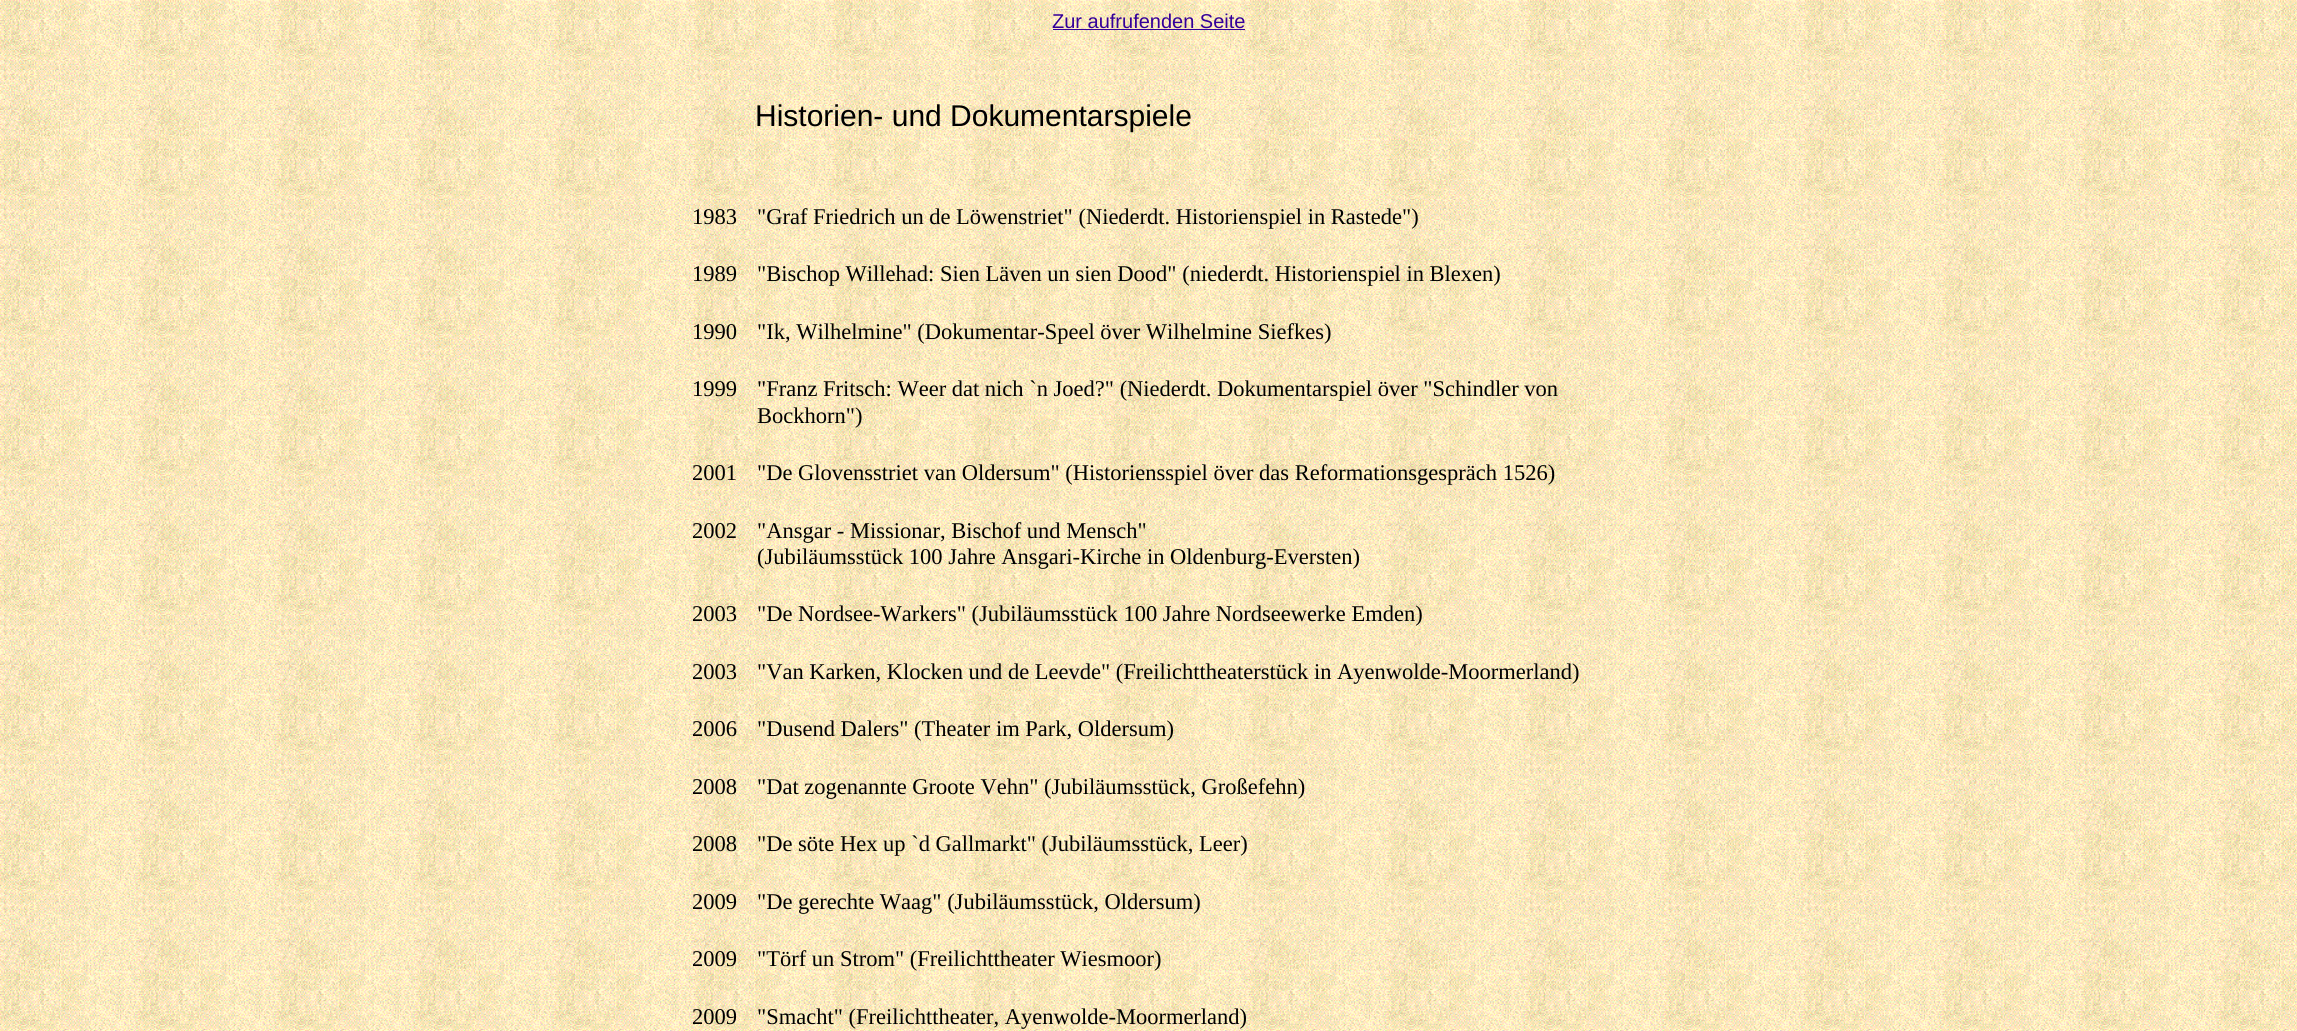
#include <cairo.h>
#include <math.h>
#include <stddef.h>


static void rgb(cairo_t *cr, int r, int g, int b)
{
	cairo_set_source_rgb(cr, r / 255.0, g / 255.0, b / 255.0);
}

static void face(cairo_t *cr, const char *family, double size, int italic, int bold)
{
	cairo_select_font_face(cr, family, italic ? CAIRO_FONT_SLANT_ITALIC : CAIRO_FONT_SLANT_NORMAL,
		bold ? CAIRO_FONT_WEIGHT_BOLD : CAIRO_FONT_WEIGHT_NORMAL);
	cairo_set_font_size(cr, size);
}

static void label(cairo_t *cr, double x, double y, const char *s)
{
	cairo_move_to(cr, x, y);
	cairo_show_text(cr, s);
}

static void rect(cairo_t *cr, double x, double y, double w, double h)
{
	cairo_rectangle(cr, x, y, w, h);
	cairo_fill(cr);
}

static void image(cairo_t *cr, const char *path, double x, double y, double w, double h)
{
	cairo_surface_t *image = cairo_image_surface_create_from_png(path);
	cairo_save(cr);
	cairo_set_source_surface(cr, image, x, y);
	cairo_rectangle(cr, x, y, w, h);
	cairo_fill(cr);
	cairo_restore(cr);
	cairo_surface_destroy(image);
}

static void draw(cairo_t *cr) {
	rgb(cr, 255, 255, 255);
	cairo_paint(cr);
	image(cr, "image0.png", 0, 0, 2297, 1031);
	face(cr, "Liberation Sans", 20, 0, 0);
	rgb(cr, 51, 0, 153);
	label(cr, 1052, 28, "Zur aufrufenden Seite");
	rect(cr, 1053, 29, 192, 1);
	face(cr, "Liberation Sans", 30, 0, 0);
	rgb(cr, 0, 0, 0);
	label(cr, 755, 126, "Historien- und Dokumentarspiele");
	face(cr, "Liberation Serif", 22.5, 0, 0);
	label(cr, 692, 224, "1983");
	label(cr, 757, 224, "\"Graf Friedrich un de Löwenstriet\" (Niederdt. Historienspiel in Rastede\")");
	label(cr, 692, 281, "1989");
	label(cr, 757, 281, "\"Bischop Willehad: Sien Läven un sien Dood\" (niederdt. Historienspiel in Blexen)");
	label(cr, 692, 339, "1990");
	label(cr, 757, 339, "\"Ik, Wilhelmine\" (Dokumentar-Speel över Wilhelmine Siefkes)");
	label(cr, 692, 396, "1999");
	label(cr, 757, 396, "\"Franz Fritsch: Weer dat nich `n Joed?\" (Niederdt. Dokumentarspiel över \"Schindler von");
	label(cr, 757, 423, "Bockhorn\")");
	label(cr, 692, 480, "2001");
	label(cr, 757, 480, "\"De Glovensstriet van Oldersum\" (Historiensspiel över das Reformationsgespräch 1526)");
	label(cr, 692, 538, "2002");
	label(cr, 757, 538, "\"Ansgar - Missionar, Bischof und Mensch\"");
	label(cr, 757, 564, "(Jubiläumsstück 100 Jahre Ansgari-Kirche in Oldenburg-Eversten)");
	label(cr, 692, 621, "2003");
	label(cr, 757, 621, "\"De Nordsee-Warkers\" (Jubiläumsstück 100 Jahre Nordseewerke Emden)");
	label(cr, 692, 679, "2003");
	label(cr, 757, 679, "\"Van Karken, Klocken und de Leevde\" (Freilichttheaterstück in Ayenwolde-Moormerland)");
	label(cr, 692, 736, "2006");
	label(cr, 757, 736, "\"Dusend Dalers\" (Theater im Park, Oldersum)");
	label(cr, 692, 794, "2008");
	label(cr, 757, 794, "\"Dat zogenannte Groote Vehn\" (Jubiläumsstück, Großefehn)");
	label(cr, 692, 851, "2008");
	label(cr, 757, 851, "\"De söte Hex up `d Gallmarkt\" (Jubiläumsstück, Leer)");
	label(cr, 692, 909, "2009");
	label(cr, 757, 909, "\"De gerechte Waag\" (Jubiläumsstück, Oldersum)");
	label(cr, 692, 966, "2009");
	label(cr, 757, 966, "\"Törf un Strom\" (Freilichttheater Wiesmoor)");
	label(cr, 692, 1024, "2009");
	label(cr, 757, 1024, "\"Smacht\" (Freilichttheater, Ayenwolde-Moormerland)");
}

int main(void) {
	cairo_surface_t *surface = cairo_image_surface_create(CAIRO_FORMAT_RGB24, 2297, 1031);
	cairo_t *cr = cairo_create(surface);
	cairo_font_options_t *options = cairo_font_options_create();
	cairo_font_options_set_hint_metrics(options, CAIRO_HINT_METRICS_OFF);
	cairo_font_options_set_hint_style(options, CAIRO_HINT_STYLE_NONE);
	cairo_set_font_options(cr, options);
	cairo_set_miter_limit(cr, 4);
	draw(cr);
	cairo_surface_write_to_png(surface, "render.png");
	cairo_font_options_destroy(options);
	cairo_destroy(cr);
	cairo_surface_destroy(surface);
	return 0;
}
